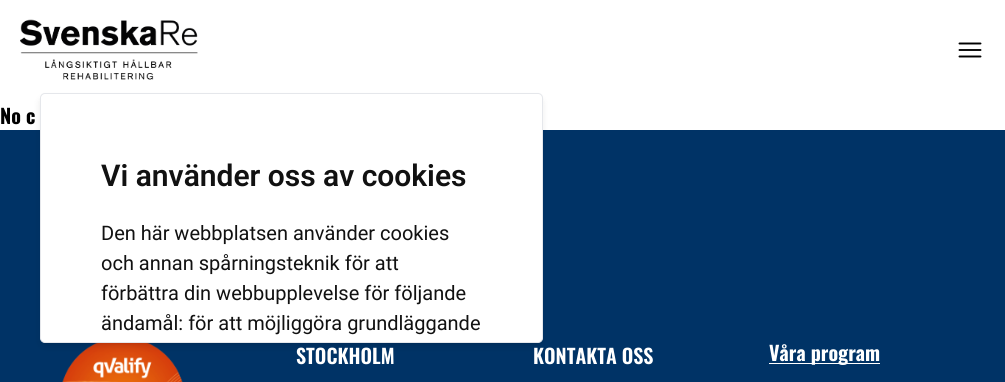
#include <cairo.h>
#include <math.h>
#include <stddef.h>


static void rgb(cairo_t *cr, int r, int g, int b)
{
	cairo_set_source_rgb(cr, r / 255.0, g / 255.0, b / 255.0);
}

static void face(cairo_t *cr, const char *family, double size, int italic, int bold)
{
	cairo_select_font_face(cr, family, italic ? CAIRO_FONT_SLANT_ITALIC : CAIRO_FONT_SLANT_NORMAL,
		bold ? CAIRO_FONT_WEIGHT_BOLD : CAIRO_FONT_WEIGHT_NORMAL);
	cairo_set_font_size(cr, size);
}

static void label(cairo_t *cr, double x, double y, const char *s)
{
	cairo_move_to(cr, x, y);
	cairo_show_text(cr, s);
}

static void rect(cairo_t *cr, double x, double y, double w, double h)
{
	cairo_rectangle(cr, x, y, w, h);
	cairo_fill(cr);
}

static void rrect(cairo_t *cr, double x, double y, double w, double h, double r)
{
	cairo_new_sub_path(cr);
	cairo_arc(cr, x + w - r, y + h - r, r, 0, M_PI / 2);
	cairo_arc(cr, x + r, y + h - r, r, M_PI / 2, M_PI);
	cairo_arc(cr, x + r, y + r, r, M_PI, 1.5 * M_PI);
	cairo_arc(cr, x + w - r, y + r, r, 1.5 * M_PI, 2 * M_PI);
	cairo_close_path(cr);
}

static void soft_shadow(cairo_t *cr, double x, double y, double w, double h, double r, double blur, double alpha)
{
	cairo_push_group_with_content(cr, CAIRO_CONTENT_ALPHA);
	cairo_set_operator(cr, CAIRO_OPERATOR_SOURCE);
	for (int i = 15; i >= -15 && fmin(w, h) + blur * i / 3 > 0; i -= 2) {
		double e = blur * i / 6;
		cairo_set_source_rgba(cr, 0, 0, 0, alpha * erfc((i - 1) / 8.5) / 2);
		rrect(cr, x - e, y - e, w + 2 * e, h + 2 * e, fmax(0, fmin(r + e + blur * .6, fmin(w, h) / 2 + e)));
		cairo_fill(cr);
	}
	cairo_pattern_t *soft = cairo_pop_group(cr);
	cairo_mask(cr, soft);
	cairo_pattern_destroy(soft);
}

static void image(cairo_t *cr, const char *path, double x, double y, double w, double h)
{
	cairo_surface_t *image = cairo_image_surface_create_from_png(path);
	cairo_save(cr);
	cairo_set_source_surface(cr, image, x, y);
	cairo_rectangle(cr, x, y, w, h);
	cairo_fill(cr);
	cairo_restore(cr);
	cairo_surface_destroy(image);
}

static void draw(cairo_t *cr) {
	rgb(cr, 255, 255, 255);
	cairo_paint(cr);
	image(cr, "image0.png", 20, 19, 178, 61);
	cairo_new_path(cr);
	cairo_move_to(cr, 959.5, 43.5);
	cairo_line_to(cr, 980.5, 43.5);
	cairo_move_to(cr, 959.5, 50);
	cairo_line_to(cr, 980.5, 50);
	cairo_move_to(cr, 959.5, 56.5);
	cairo_line_to(cr, 980.5, 56.5);
	rgb(cr, 0, 0, 0);
	cairo_set_line_width(cr, 1.9);
	cairo_set_line_cap(cr, CAIRO_LINE_CAP_ROUND);
	cairo_set_line_join(cr, CAIRO_LINE_JOIN_ROUND);
	cairo_stroke(cr);
	face(cr, "Oswald", 20, 0, 1);
	label(cr, 0, 124, "No c");
	rgb(cr, 0, 51, 102);
	rect(cr, 0, 130, 1005, 252);
	image(cr, "image1.png", 62, 343, 121, 39);
	rgb(cr, 0, 0, 0);
	soft_shadow(cr, 43, 98, 497, 245, 2.5, 2.5, 0.1);
	soft_shadow(cr, 41, 99, 500, 247, 4, 4, 0.1);
	rgb(cr, 255, 255, 255);
	rrect(cr, 40.5, 93.5, 502, 249, 4.5);
	cairo_fill_preserve(cr);
	rgb(cr, 229, 231, 235);
	cairo_set_line_width(cr, 1);
	cairo_set_line_cap(cr, CAIRO_LINE_CAP_BUTT);
	cairo_set_line_join(cr, CAIRO_LINE_JOIN_MITER);
	cairo_stroke(cr);
	face(cr, "Roboto SemiBold", 30, 0, 0);
	rgb(cr, 17, 17, 17);
	label(cr, 101, 186, "Vi använder oss av cookies");
	face(cr, "Roboto", 20, 0, 0);
	label(cr, 101, 240, "Den här webbplatsen använder cookies");
	label(cr, 101, 270, "och annan spårningsteknik för att");
	label(cr, 101, 300, "förbättra din webbupplevelse för följande");
	label(cr, 101, 330, "ändamål: för att möjliggöra grundläggande");
	face(cr, "Oswald SemiBold", 20, 0, 0);
	rgb(cr, 255, 255, 255);
	label(cr, 296, 364, "STOCKHOLM");
	label(cr, 533, 364, "KONTAKTA OSS");
	rect(cr, 769, 363, 111, 1);
	face(cr, "Oswald", 20, 0, 1);
	label(cr, 769, 361, "Våra program");
}

int main(void) {
	cairo_surface_t *surface = cairo_image_surface_create(CAIRO_FORMAT_RGB24, 1005, 382);
	cairo_t *cr = cairo_create(surface);
	cairo_font_options_t *options = cairo_font_options_create();
	cairo_font_options_set_hint_metrics(options, CAIRO_HINT_METRICS_OFF);
	cairo_font_options_set_hint_style(options, CAIRO_HINT_STYLE_NONE);
	cairo_set_font_options(cr, options);
	cairo_set_miter_limit(cr, 4);
	draw(cr);
	cairo_surface_write_to_png(surface, "render.png");
	cairo_font_options_destroy(options);
	cairo_destroy(cr);
	cairo_surface_destroy(surface);
	return 0;
}
